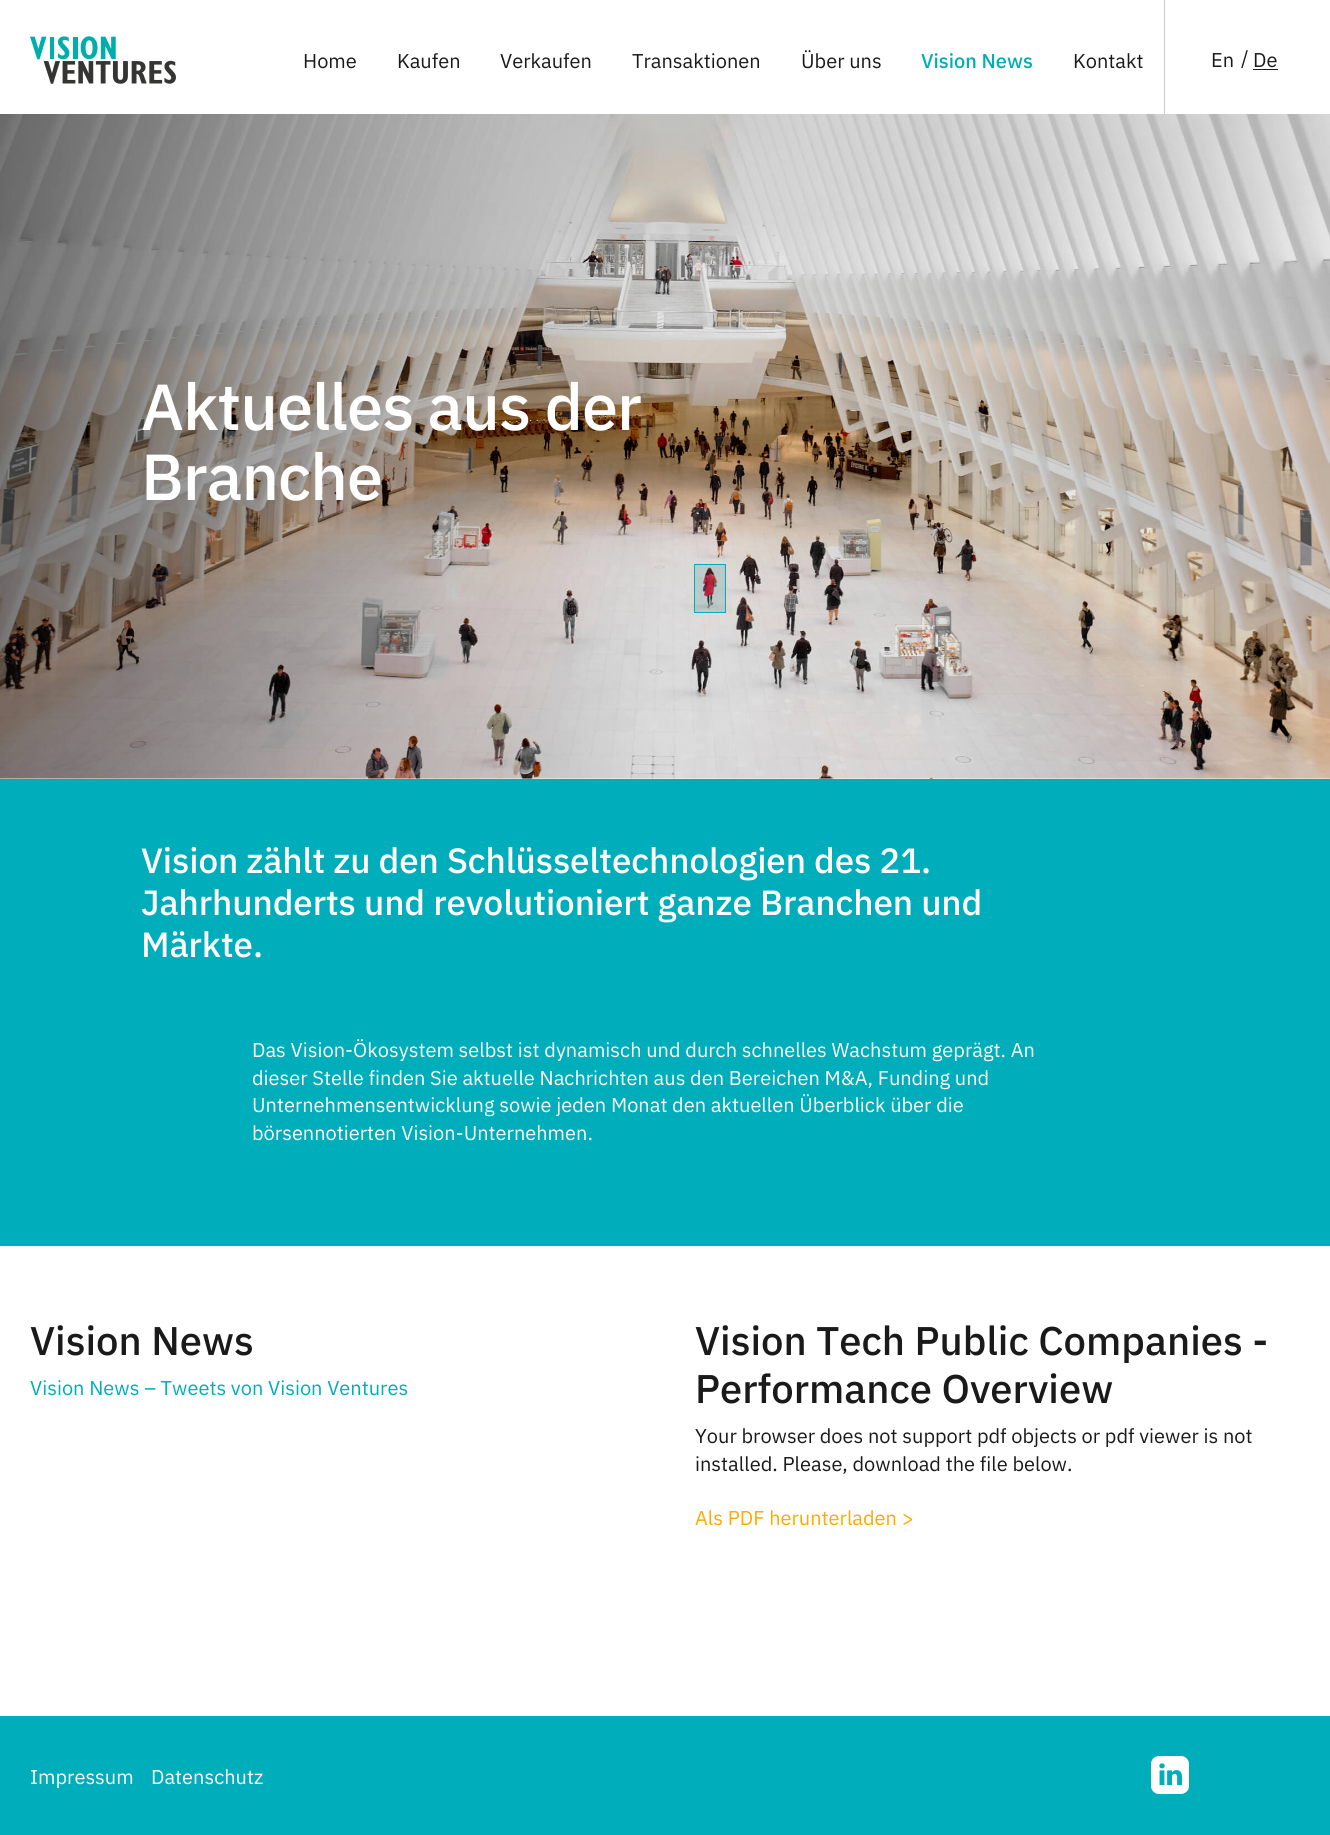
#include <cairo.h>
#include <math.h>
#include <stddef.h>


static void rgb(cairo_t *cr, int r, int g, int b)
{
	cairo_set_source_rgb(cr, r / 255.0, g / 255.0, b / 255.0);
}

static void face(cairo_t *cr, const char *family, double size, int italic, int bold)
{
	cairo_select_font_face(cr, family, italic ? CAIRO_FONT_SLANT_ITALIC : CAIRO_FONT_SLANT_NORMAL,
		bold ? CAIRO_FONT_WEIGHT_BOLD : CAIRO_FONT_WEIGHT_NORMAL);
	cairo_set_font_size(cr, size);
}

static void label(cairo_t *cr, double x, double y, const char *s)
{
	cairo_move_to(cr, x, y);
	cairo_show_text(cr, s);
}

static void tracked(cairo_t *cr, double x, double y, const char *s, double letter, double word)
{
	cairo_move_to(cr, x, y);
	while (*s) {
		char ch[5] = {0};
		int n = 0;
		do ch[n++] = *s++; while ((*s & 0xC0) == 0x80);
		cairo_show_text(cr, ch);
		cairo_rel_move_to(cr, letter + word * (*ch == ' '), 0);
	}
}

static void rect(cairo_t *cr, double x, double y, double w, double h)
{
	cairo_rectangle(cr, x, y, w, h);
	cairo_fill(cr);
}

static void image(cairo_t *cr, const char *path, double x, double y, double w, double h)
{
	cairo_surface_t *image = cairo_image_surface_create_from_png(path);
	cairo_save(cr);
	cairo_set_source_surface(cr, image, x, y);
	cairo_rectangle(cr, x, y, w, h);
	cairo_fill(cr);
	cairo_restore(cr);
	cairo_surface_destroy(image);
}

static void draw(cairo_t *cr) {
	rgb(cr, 255, 255, 255);
	cairo_paint(cr);
	image(cr, "image0.png", 30, 36, 146, 48);
	face(cr, "IBM Plex Sans", 20, 0, 0);
	rgb(cr, 26, 26, 26);
	label(cr, 303, 68, "Home");
	label(cr, 397, 68, "Kaufen");
	label(cr, 500, 68, "Verkaufen");
	label(cr, 632, 68, "Transaktionen");
	label(cr, 801, 68, "Über uns");
	face(cr, "IBM Plex Sans Medium", 20, 0, 0);
	rgb(cr, 0, 173, 186);
	label(cr, 921, 68, "Vision News");
	face(cr, "IBM Plex Sans", 20, 0, 0);
	rgb(cr, 26, 26, 26);
	label(cr, 1073, 68, "Kontakt");
	rgb(cr, 204, 204, 204);
	rect(cr, 1164, 0, 1, 114);
	rgb(cr, 26, 26, 26);
	label(cr, 1211, 67, "En");
	label(cr, 1241, 65, "/");
	label(cr, 1253, 67, "De");
	rect(cr, 1253, 69, 25, 1);
	image(cr, "image1.png", 0, 114, 1330, 665);
	face(cr, "IBM Plex Sans Medium", 65, 0, 0);
	rgb(cr, 255, 255, 255);
	tracked(cr, 141, 430, "Aktuelles aus der", -1, 0);
	tracked(cr, 141, 500, "Branche", -1, 0);
	cairo_set_source_rgba(cr, 0, 0.42, 0.451, 0.15);
	cairo_rectangle(cr, 694.5, 564.5, 31, 48);
	cairo_fill_preserve(cr);
	rgb(cr, 0, 173, 186);
	cairo_set_line_width(cr, 1);
	cairo_stroke(cr);
	rect(cr, 0, 779, 1330, 467);
	face(cr, "IBM Plex Sans Medium", 35, 0, 0);
	rgb(cr, 255, 255, 255);
	tracked(cr, 141, 873, "Vision zählt zu den Schlüsseltechnologien des 21.", -0.1, 0);
	tracked(cr, 141, 915, "Jahrhunderts und revolutioniert ganze Branchen und", -0.1, 0);
	tracked(cr, 141, 957, "Märkte.", -0.1, 0);
	face(cr, "IBM Plex Sans", 20, 0, 0);
	label(cr, 252, 1057, "Das Vision-Ökosystem selbst ist dynamisch und durch schnelles Wachstum geprägt. An");
	label(cr, 252, 1085, "dieser Stelle finden Sie aktuelle Nachrichten aus den Bereichen M&A, Funding und");
	label(cr, 252, 1112, "Unternehmensentwicklung sowie jeden Monat den aktuellen Überblick über die");
	label(cr, 252, 1140, "börsennotierten Vision-Unternehmen.");
	face(cr, "IBM Plex Sans Medium", 40, 0, 0);
	rgb(cr, 26, 26, 26);
	label(cr, 30, 1355, "Vision News");
	face(cr, "IBM Plex Sans", 20, 0, 0);
	rgb(cr, 0, 173, 186);
	label(cr, 30, 1395, "Vision News – Tweets von Vision Ventures");
	face(cr, "IBM Plex Sans Medium", 40, 0, 0);
	rgb(cr, 26, 26, 26);
	label(cr, 695, 1355, "Vision Tech Public Companies -");
	label(cr, 695, 1403, "Performance Overview");
	face(cr, "IBM Plex Sans", 20, 0, 0);
	label(cr, 695, 1443, "Your browser does not support pdf objects or pdf viewer is not");
	label(cr, 695, 1471, "installed. Please, download the file below.");
	rgb(cr, 255, 170, 0);
	label(cr, 695, 1525, "Als PDF herunterladen >");
	rgb(cr, 0, 173, 186);
	rect(cr, 0, 1716, 1330, 119);
	rgb(cr, 255, 255, 255);
	label(cr, 30, 1784, "Impressum");
	label(cr, 151, 1784, "Datenschutz");
	image(cr, "image2.png", 1151, 1756, 38, 38);
}

int main(void) {
	cairo_surface_t *surface = cairo_image_surface_create(CAIRO_FORMAT_RGB24, 1330, 1835);
	cairo_t *cr = cairo_create(surface);
	cairo_font_options_t *options = cairo_font_options_create();
	cairo_font_options_set_hint_metrics(options, CAIRO_HINT_METRICS_OFF);
	cairo_font_options_set_hint_style(options, CAIRO_HINT_STYLE_NONE);
	cairo_set_font_options(cr, options);
	cairo_set_miter_limit(cr, 4);
	draw(cr);
	cairo_surface_write_to_png(surface, "render.png");
	cairo_font_options_destroy(options);
	cairo_destroy(cr);
	cairo_surface_destroy(surface);
	return 0;
}
